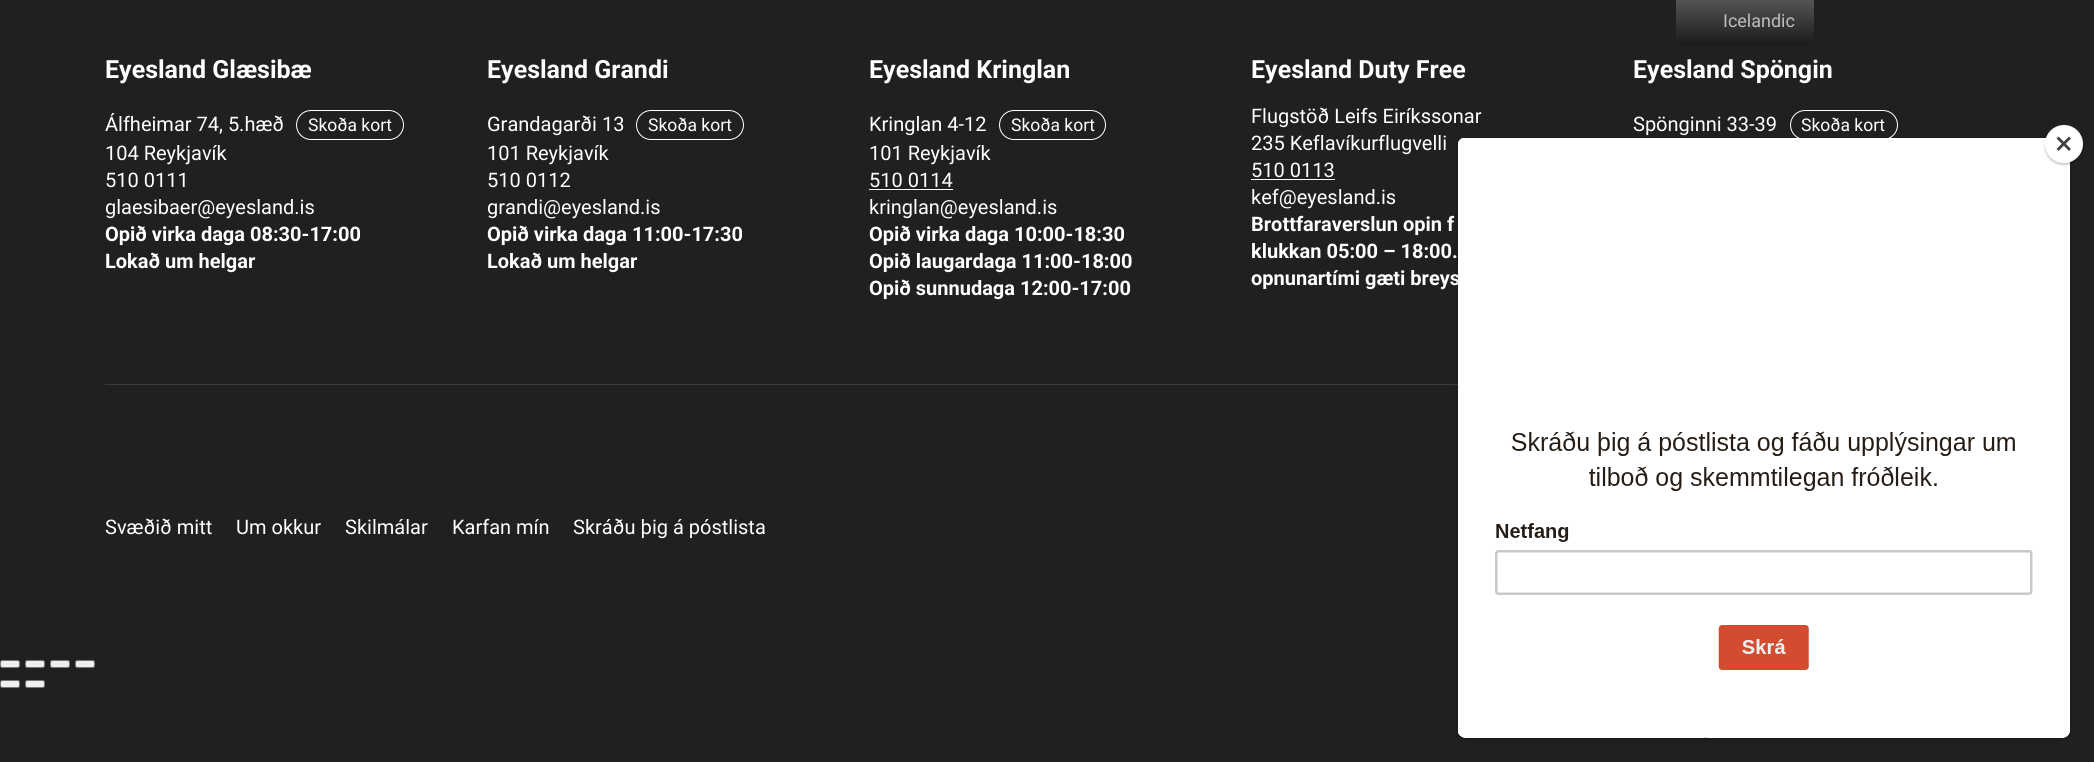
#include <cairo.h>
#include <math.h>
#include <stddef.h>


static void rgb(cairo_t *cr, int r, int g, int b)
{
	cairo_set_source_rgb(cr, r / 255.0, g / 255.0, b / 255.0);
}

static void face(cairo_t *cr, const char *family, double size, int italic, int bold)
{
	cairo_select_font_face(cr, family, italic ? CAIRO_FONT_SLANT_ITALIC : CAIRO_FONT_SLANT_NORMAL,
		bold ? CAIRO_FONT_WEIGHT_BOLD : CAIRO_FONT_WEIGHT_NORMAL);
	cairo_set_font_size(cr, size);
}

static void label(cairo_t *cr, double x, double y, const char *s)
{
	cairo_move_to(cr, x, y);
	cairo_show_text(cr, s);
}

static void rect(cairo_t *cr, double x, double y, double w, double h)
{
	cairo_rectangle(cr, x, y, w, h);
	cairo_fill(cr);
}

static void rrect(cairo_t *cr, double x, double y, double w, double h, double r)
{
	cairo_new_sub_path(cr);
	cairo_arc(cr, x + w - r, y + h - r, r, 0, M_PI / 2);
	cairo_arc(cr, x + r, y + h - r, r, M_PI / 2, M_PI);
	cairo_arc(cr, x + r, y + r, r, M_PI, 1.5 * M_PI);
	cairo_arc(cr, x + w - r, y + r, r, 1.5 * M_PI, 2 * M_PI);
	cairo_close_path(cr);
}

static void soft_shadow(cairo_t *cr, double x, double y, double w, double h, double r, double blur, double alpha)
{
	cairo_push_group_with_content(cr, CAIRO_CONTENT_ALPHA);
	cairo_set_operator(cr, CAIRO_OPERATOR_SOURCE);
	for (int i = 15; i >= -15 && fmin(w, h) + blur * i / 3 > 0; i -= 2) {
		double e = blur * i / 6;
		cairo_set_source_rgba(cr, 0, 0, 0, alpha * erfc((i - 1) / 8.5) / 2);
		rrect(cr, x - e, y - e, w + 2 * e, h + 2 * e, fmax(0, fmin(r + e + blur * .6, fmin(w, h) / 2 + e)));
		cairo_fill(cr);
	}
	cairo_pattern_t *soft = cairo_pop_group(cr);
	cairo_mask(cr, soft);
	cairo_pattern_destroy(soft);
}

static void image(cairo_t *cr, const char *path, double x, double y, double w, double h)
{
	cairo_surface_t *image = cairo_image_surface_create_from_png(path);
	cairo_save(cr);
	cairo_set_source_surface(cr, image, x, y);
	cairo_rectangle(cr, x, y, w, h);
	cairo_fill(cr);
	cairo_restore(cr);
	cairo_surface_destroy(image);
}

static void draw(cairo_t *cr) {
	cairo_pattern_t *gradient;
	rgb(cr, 32, 32, 30);
	cairo_paint(cr);
	gradient = cairo_pattern_create_linear(1745, 45, 1745, 0);
	cairo_pattern_add_color_stop_rgba(gradient, 0, 0.106, 0.106, 0.106, 1);
	cairo_pattern_add_color_stop_rgba(gradient, 1, 0.329, 0.329, 0.329, 1);
	cairo_set_source(cr, gradient);
	cairo_pattern_destroy(gradient);
	cairo_new_path(cr);
	cairo_move_to(cr, 1676, 0);
	cairo_line_to(cr, 1814, 0);
	cairo_line_to(cr, 1814, 39);
	cairo_curve_to(cr, 1814, 42.5, 1811.5, 45, 1808, 45);
	cairo_line_to(cr, 1682, 45);
	cairo_curve_to(cr, 1678.5, 45, 1676, 42.5, 1676, 39);
	cairo_close_path(cr);
	cairo_fill(cr);
	face(cr, "Roboto", 18, 0, 0);
	rgb(cr, 189, 189, 189);
	label(cr, 1723, 27, "Icelandic");
	face(cr, "Roboto", 25, 0, 1);
	rgb(cr, 255, 255, 255);
	label(cr, 105, 78, "Eyesland Glæsibæ");
	face(cr, "Roboto", 20, 0, 0);
	label(cr, 105, 131, "Álfheimar 74, 5.hæð");
	rrect(cr, 296.5, 110.5, 107, 29, 14.5);
	cairo_set_line_width(cr, 1);
	cairo_stroke(cr);
	face(cr, "Roboto", 17.5, 0, 0);
	label(cr, 308, 131, "Skoða kort");
	face(cr, "Roboto", 20, 0, 0);
	label(cr, 105, 160, "104 Reykjavík");
	label(cr, 105, 187, "510 0111");
	label(cr, 105, 214, "glaesibaer@eyesland.is");
	face(cr, "Roboto", 20, 0, 1);
	label(cr, 105, 241, "Opið virka daga 08:30-17:00");
	label(cr, 105, 268, "Lokað um helgar");
	face(cr, "Roboto", 25, 0, 1);
	label(cr, 487, 78, "Eyesland Grandi");
	face(cr, "Roboto", 20, 0, 0);
	label(cr, 487, 131, "Grandagarði 13");
	rrect(cr, 636.5, 110.5, 107, 29, 14.5);
	cairo_stroke(cr);
	face(cr, "Roboto", 17.5, 0, 0);
	label(cr, 648, 131, "Skoða kort");
	face(cr, "Roboto", 20, 0, 0);
	label(cr, 487, 160, "101 Reykjavík");
	label(cr, 487, 187, "510 0112");
	label(cr, 487, 214, "grandi@eyesland.is");
	face(cr, "Roboto", 20, 0, 1);
	label(cr, 487, 241, "Opið virka daga 11:00-17:30");
	label(cr, 487, 268, "Lokað um helgar");
	face(cr, "Roboto", 25, 0, 1);
	label(cr, 869, 78, "Eyesland Kringlan");
	face(cr, "Roboto", 20, 0, 0);
	label(cr, 869, 131, "Kringlan 4-12");
	rrect(cr, 999.5, 110.5, 106, 29, 14.5);
	cairo_stroke(cr);
	face(cr, "Roboto", 17.5, 0, 0);
	label(cr, 1011, 131, "Skoða kort");
	face(cr, "Roboto", 20, 0, 0);
	label(cr, 869, 160, "101 Reykjavík");
	label(cr, 869, 187, "510 0114");
	rect(cr, 869, 189, 84, 1);
	label(cr, 869, 214, "kringlan@eyesland.is");
	face(cr, "Roboto", 20, 0, 1);
	label(cr, 869, 241, "Opið virka daga 10:00-18:30");
	label(cr, 869, 268, "Opið laugardaga 11:00-18:00");
	label(cr, 869, 295, "Opið sunnudaga 12:00-17:00");
	face(cr, "Roboto", 25, 0, 1);
	label(cr, 1251, 78, "Eyesland Duty Free");
	face(cr, "Roboto", 20, 0, 0);
	label(cr, 1251, 123, "Flugstöð Leifs Eiríkssonar");
	label(cr, 1251, 150, "235 Keflavíkurflugvelli");
	label(cr, 1251, 177, "510 0113");
	rect(cr, 1251, 179, 84, 1);
	label(cr, 1251, 204, "kef@eyesland.is");
	face(cr, "Roboto", 20, 0, 1);
	label(cr, 1251, 231, "Brottfaraverslun opin f");
	label(cr, 1251, 258, "klukkan 05:00 – 18:00.");
	label(cr, 1251, 285, "opnunartími gæti breys");
	face(cr, "Roboto", 25, 0, 1);
	label(cr, 1633, 78, "Eyesland Spöngin");
	face(cr, "Roboto", 20, 0, 0);
	label(cr, 1633, 131, "Spönginni 33-39");
	rrect(cr, 1790.5, 110.5, 107, 29, 14.5);
	cairo_stroke(cr);
	face(cr, "Roboto", 17.5, 0, 0);
	label(cr, 1801, 131, "Skoða kort");
	rgb(cr, 59, 59, 57);
	rect(cr, 105, 384, 1353, 1);
	face(cr, "Roboto", 20, 0, 0);
	rgb(cr, 255, 255, 255);
	label(cr, 105, 534, "Svæðið mitt");
	label(cr, 236, 534, "Um okkur");
	label(cr, 345, 534, "Skilmálar");
	label(cr, 452, 534, "Karfan mín");
	label(cr, 573, 534, "Skráðu þig á póstlista");
	rgb(cr, 239, 239, 239);
	rrect(cr, 0.5, 660.5, 19, 7, 2);
	cairo_fill_preserve(cr);
	rgb(cr, 118, 118, 118);
	cairo_stroke(cr);
	rgb(cr, 239, 239, 239);
	rrect(cr, 25.5, 660.5, 19, 7, 2);
	cairo_fill_preserve(cr);
	rgb(cr, 118, 118, 118);
	cairo_stroke(cr);
	rgb(cr, 239, 239, 239);
	rrect(cr, 50.5, 660.5, 19, 7, 2);
	cairo_fill_preserve(cr);
	rgb(cr, 118, 118, 118);
	cairo_stroke(cr);
	rgb(cr, 239, 239, 239);
	rrect(cr, 75.5, 660.5, 19, 7, 2);
	cairo_fill_preserve(cr);
	rgb(cr, 118, 118, 118);
	cairo_stroke(cr);
	rgb(cr, 239, 239, 239);
	rrect(cr, 0.5, 680.5, 19, 7, 2);
	cairo_fill_preserve(cr);
	rgb(cr, 118, 118, 118);
	cairo_stroke(cr);
	rgb(cr, 239, 239, 239);
	rrect(cr, 25.5, 680.5, 19, 7, 2);
	cairo_fill_preserve(cr);
	rgb(cr, 118, 118, 118);
	cairo_stroke(cr);
	rgb(cr, 0, 0, 0);
	soft_shadow(cr, 1458, 140, 612, 600, 8, 2.5, 0.2);
	rgb(cr, 255, 255, 255);
	rrect(cr, 1458, 138, 612, 600, 8);
	cairo_fill(cr);
	image(cr, "image0.png", 1458, 138, 612, 600);
	rgb(cr, 0, 0, 0);
	soft_shadow(cr, 2045, 128, 38, 37, 18.5, 1, 0.2);
	rgb(cr, 255, 255, 255);
	cairo_arc(cr, 2064, 144, 19, 0, 2 * M_PI);
	cairo_fill(cr);
	rgb(cr, 65, 65, 65);
	cairo_new_path(cr);
	cairo_move_to(cr, 2069, 136.5);
	cairo_line_to(cr, 2071, 138.5);
	cairo_line_to(cr, 2058.5, 151);
	cairo_line_to(cr, 2056.5, 149);
	cairo_close_path(cr);
	cairo_fill(cr);
	cairo_new_path(cr);
	cairo_move_to(cr, 2056.5, 138.5);
	cairo_line_to(cr, 2058.5, 136.5);
	cairo_line_to(cr, 2071, 149);
	cairo_line_to(cr, 2069, 151);
	cairo_close_path(cr);
	cairo_fill(cr);
}

int main(void) {
	cairo_surface_t *surface = cairo_image_surface_create(CAIRO_FORMAT_RGB24, 2094, 762);
	cairo_t *cr = cairo_create(surface);
	cairo_font_options_t *options = cairo_font_options_create();
	cairo_font_options_set_hint_metrics(options, CAIRO_HINT_METRICS_OFF);
	cairo_font_options_set_hint_style(options, CAIRO_HINT_STYLE_NONE);
	cairo_set_font_options(cr, options);
	cairo_set_miter_limit(cr, 4);
	draw(cr);
	cairo_surface_write_to_png(surface, "render.png");
	cairo_font_options_destroy(options);
	cairo_destroy(cr);
	cairo_surface_destroy(surface);
	return 0;
}
